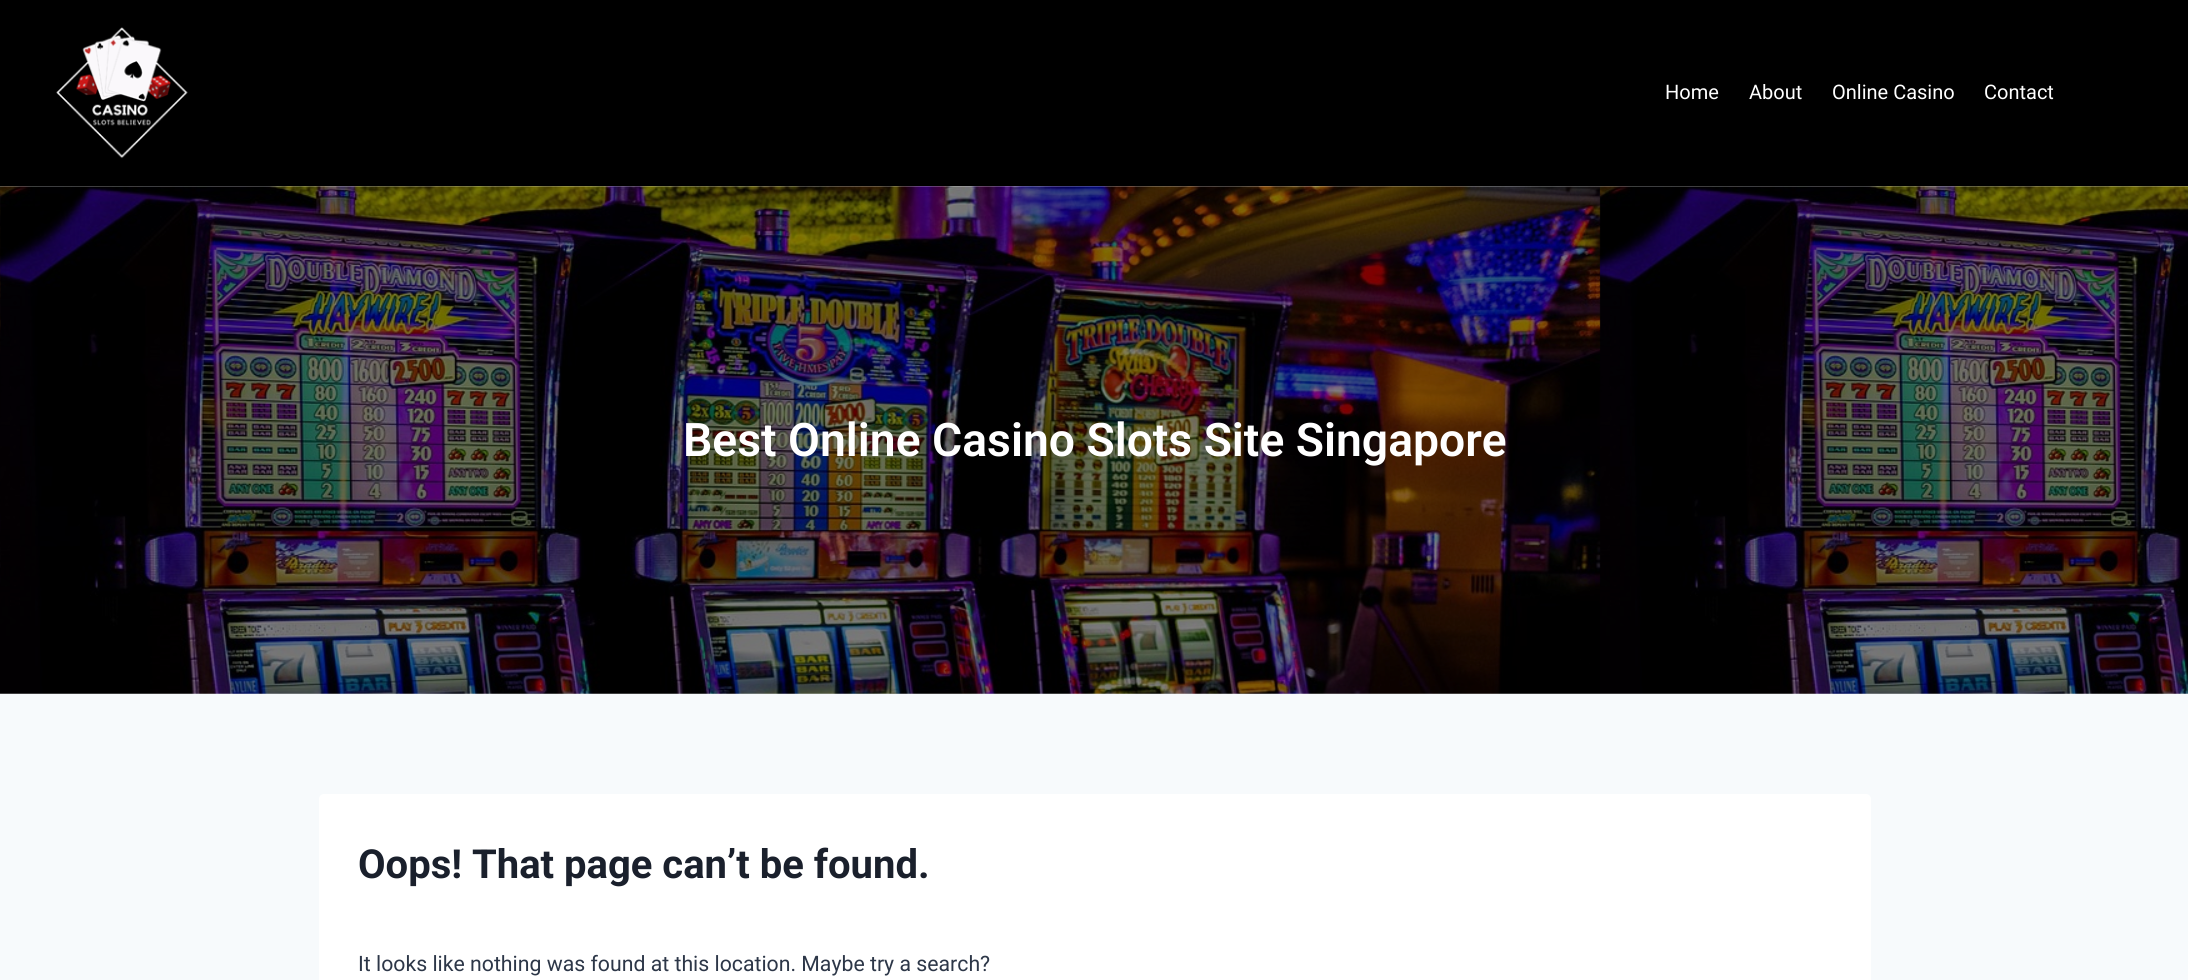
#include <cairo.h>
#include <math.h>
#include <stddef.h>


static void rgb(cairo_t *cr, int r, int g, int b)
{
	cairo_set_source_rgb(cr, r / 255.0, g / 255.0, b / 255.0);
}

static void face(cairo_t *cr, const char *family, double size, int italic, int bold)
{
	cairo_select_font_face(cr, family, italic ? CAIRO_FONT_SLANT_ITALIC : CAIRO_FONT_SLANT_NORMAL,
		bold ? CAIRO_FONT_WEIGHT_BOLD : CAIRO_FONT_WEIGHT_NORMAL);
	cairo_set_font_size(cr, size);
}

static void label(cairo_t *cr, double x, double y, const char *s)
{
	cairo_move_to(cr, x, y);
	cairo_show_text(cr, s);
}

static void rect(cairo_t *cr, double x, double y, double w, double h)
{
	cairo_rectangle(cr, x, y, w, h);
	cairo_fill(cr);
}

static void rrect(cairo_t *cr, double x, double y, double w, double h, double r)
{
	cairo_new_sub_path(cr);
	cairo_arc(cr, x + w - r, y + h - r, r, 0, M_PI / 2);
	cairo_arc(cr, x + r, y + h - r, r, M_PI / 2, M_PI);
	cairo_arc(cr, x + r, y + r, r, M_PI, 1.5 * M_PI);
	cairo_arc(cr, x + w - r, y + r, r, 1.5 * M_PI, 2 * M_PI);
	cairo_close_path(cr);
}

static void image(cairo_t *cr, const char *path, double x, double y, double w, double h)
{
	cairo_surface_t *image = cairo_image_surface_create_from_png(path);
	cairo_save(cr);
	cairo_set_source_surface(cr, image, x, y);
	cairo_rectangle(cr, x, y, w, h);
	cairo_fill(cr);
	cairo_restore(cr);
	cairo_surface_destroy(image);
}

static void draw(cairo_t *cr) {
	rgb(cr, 247, 250, 252);
	cairo_paint(cr);
	rgb(cr, 0, 0, 0);
	rect(cr, 0, 0, 2188, 186);
	image(cr, "image0.png", 56, 27, 132, 132);
	face(cr, "Roboto", 20, 0, 0);
	rgb(cr, 255, 255, 255);
	label(cr, 1665, 99, "Home");
	label(cr, 1749, 99, "About");
	label(cr, 1832, 99, "Online Casino");
	label(cr, 1984, 99, "Contact");
	image(cr, "image1.png", 0, 186, 2188, 508);
	face(cr, "Roboto SemiBold", 46.25, 0, 0);
	label(cr, 683, 456, "Best Online Casino Slots Site Singapore");
	rrect(cr, 319, 794, 1552, 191, 5);
	cairo_fill(cr);
	face(cr, "Roboto", 40, 0, 1);
	rgb(cr, 26, 32, 44);
	label(cr, 358, 878, "Oops! That page can’t be found.");
	face(cr, "Roboto", 21.25, 0, 0);
	rgb(cr, 45, 55, 72);
	label(cr, 358, 971, "It looks like nothing was found at this location. Maybe try a search?");
}

int main(void) {
	cairo_surface_t *surface = cairo_image_surface_create(CAIRO_FORMAT_RGB24, 2188, 980);
	cairo_t *cr = cairo_create(surface);
	cairo_font_options_t *options = cairo_font_options_create();
	cairo_font_options_set_hint_metrics(options, CAIRO_HINT_METRICS_OFF);
	cairo_font_options_set_hint_style(options, CAIRO_HINT_STYLE_NONE);
	cairo_set_font_options(cr, options);
	cairo_set_miter_limit(cr, 4);
	draw(cr);
	cairo_surface_write_to_png(surface, "render.png");
	cairo_font_options_destroy(options);
	cairo_destroy(cr);
	cairo_surface_destroy(surface);
	return 0;
}
